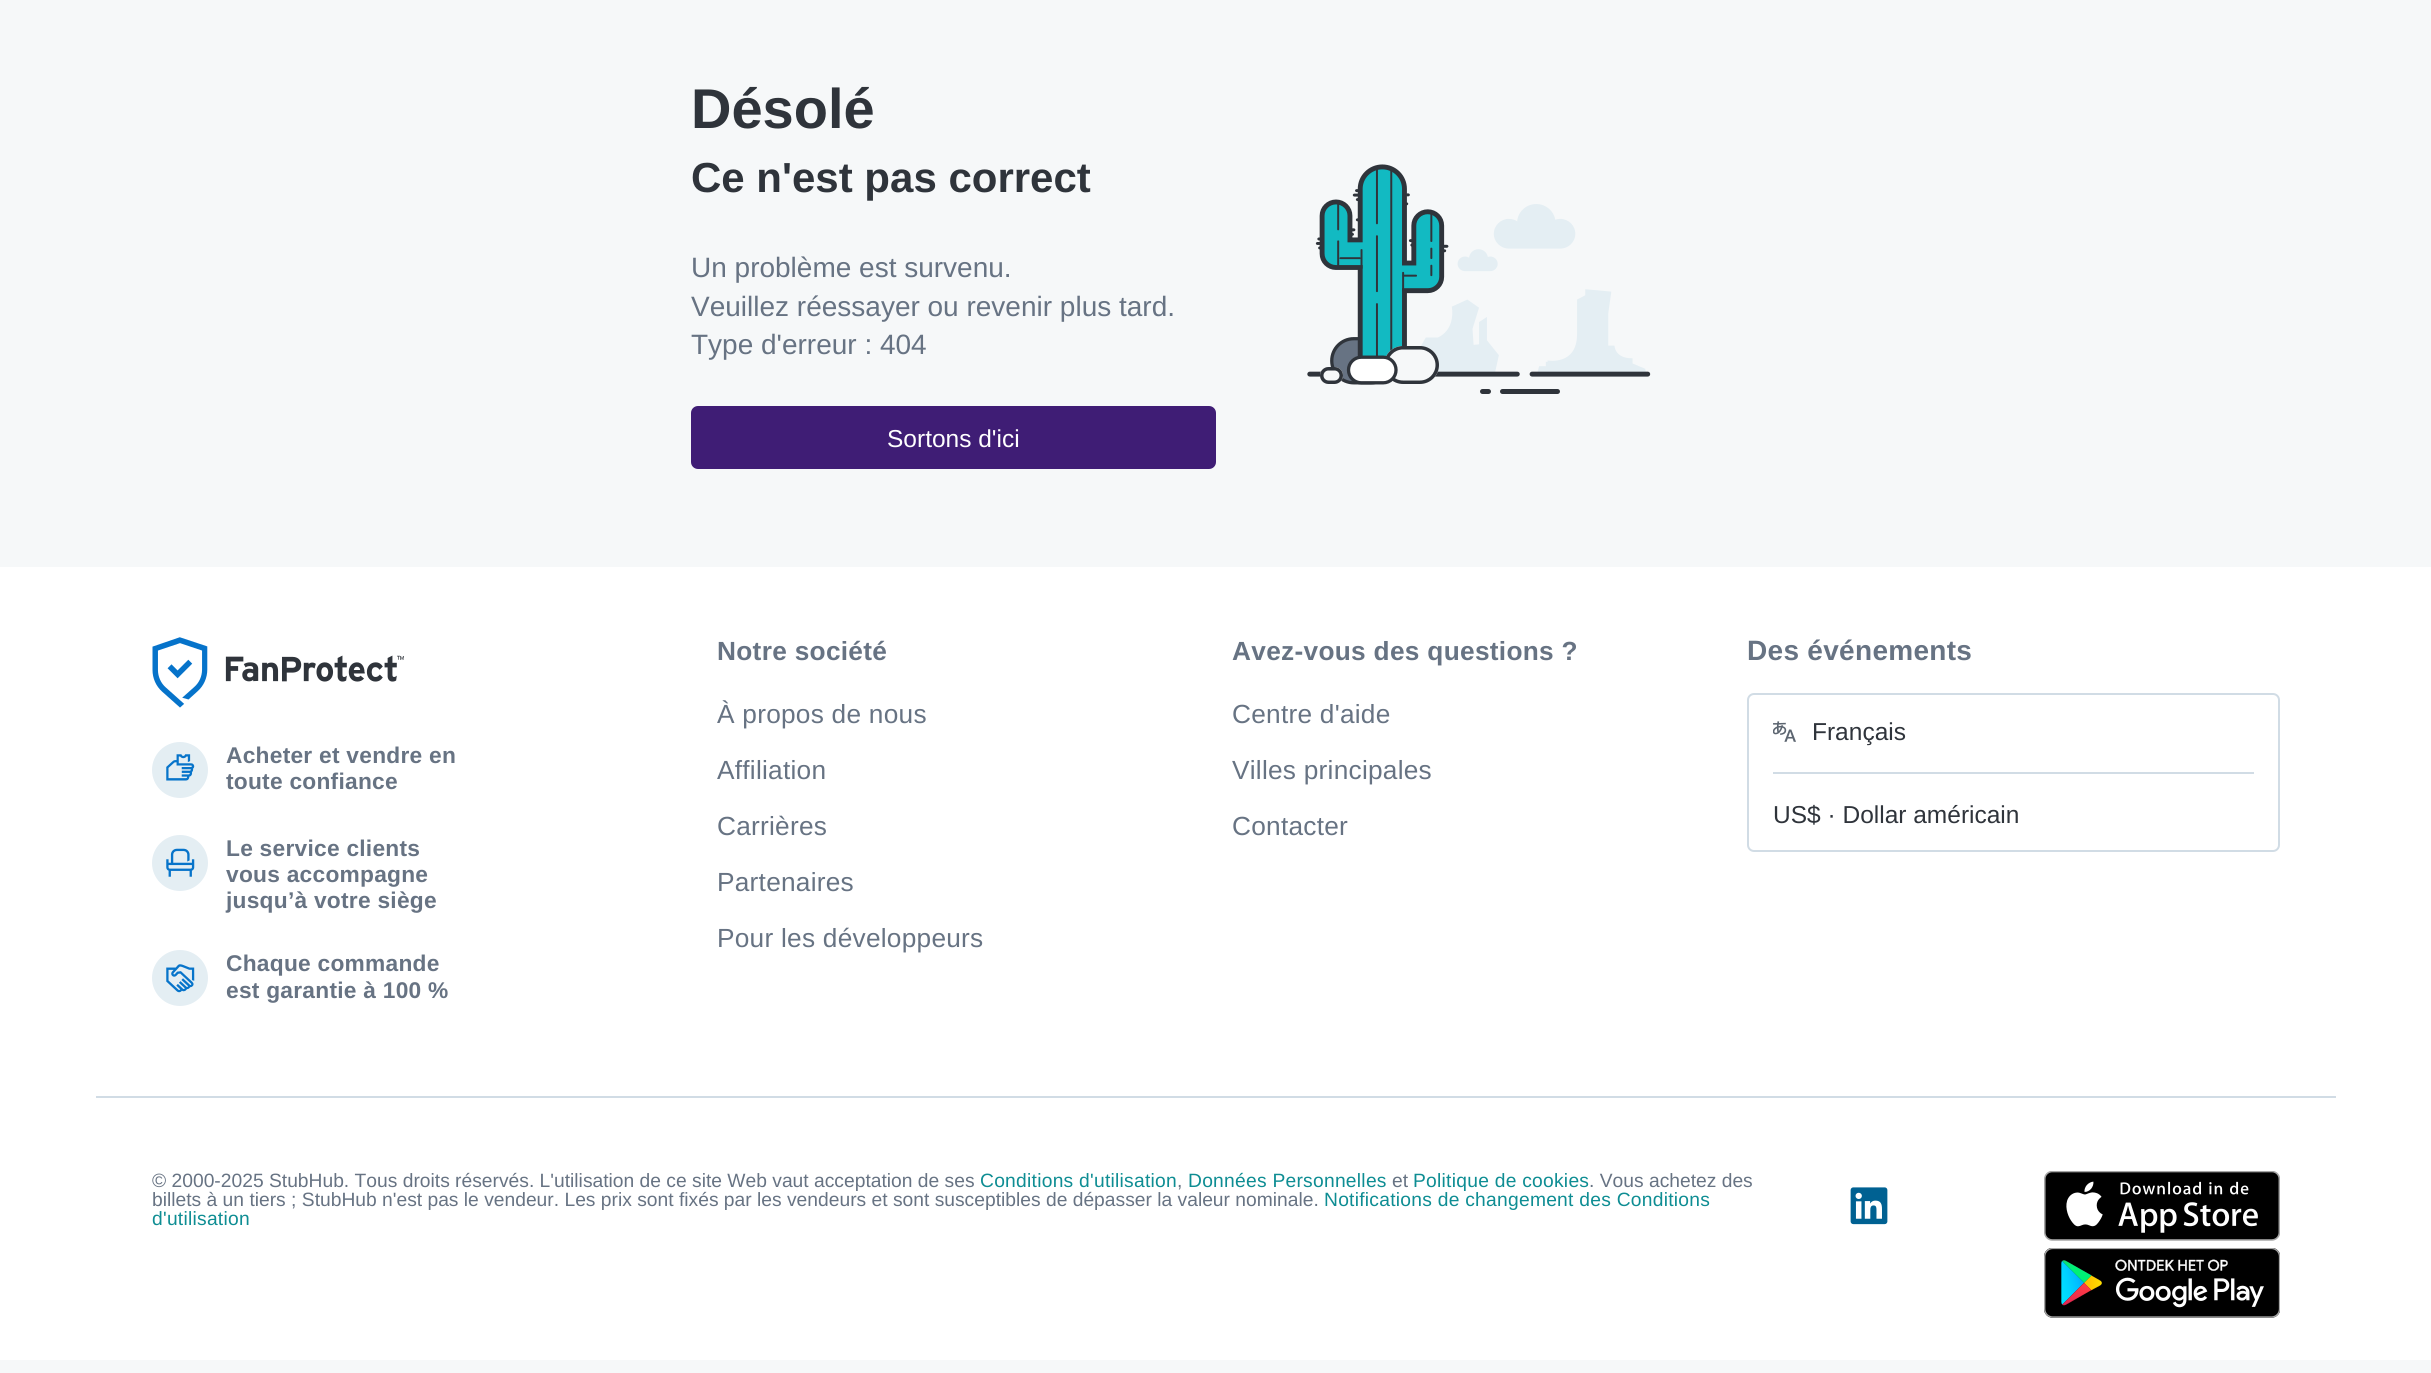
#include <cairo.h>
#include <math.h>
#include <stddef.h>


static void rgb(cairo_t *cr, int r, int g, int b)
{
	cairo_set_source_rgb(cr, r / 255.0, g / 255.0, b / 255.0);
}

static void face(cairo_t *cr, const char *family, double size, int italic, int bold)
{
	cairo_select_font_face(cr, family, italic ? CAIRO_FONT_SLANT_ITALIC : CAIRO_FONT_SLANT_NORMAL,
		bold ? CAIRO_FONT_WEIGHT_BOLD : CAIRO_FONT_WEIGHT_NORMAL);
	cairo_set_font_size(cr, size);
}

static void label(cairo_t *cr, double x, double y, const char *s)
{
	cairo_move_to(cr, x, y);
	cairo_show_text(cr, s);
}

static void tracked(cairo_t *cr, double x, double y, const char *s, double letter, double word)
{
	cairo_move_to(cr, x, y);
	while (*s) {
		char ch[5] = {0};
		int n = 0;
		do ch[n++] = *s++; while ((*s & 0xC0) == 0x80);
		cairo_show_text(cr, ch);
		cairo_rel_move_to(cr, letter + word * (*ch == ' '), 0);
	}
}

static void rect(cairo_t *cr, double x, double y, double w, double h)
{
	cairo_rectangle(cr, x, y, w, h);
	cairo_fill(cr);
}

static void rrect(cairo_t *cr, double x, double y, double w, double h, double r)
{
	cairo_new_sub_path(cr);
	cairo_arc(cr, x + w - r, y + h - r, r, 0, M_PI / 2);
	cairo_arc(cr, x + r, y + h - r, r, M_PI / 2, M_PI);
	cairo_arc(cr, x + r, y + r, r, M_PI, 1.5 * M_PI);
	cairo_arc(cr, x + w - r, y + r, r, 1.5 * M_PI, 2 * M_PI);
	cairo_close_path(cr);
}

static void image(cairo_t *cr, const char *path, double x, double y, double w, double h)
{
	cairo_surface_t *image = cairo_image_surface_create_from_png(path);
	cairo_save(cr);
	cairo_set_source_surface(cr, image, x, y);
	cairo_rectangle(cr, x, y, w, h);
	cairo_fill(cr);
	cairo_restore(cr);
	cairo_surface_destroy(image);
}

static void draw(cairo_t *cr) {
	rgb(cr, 246, 248, 249);
	cairo_paint(cr);
	face(cr, "Liberation Sans", 56, 0, 1);
	rgb(cr, 47, 52, 59);
	label(cr, 691, 128, "Désolé");
	face(cr, "Liberation Sans", 42, 0, 1);
	label(cr, 691, 192, "Ce n'est pas correct");
	image(cr, "image0.png", 1307, 164, 344, 230);
	face(cr, "Liberation Sans", 28, 0, 0);
	rgb(cr, 103, 115, 131);
	label(cr, 691, 277, "Un problème est survenu.");
	label(cr, 691, 316, "Veuillez réessayer ou revenir plus tard.");
	label(cr, 691, 354, "Type d'erreur : 404");
	rgb(cr, 63, 29, 117);
	rrect(cr, 692, 407, 523, 61, 6);
	cairo_fill_preserve(cr);
	cairo_stroke(cr);
	face(cr, "Liberation Sans", 24.5, 0, 0);
	rgb(cr, 255, 255, 255);
	label(cr, 887, 447, "Sortons d'ici");
	rect(cr, 0, 567, 2431, 793);
	image(cr, "image1.png", 152, 637, 252, 71);
	image(cr, "image2.png", 152, 742, 56, 56);
	face(cr, "Liberation Sans", 22.75, 0, 1);
	rgb(cr, 103, 115, 131);
	tracked(cr, 226, 763, "Acheter et vendre en", 0.25, 0);
	tracked(cr, 226, 789, "toute confiance", 0.25, 0);
	image(cr, "image3.png", 152, 835, 56, 56);
	tracked(cr, 226, 856, "Le service clients", 0.25, 0);
	tracked(cr, 226, 882, "vous accompagne", 0.25, 0);
	tracked(cr, 226, 908, "jusqu’à votre siège", 0.25, 0);
	image(cr, "image4.png", 152, 950, 56, 56);
	tracked(cr, 226, 971, "Chaque commande", 0.25, 0);
	tracked(cr, 226, 998, "est garantie à 100 %", 0.25, 0);
	face(cr, "Liberation Sans", 26.25, 0, 1);
	tracked(cr, 717, 660, "Notre société", 0.3, 0);
	face(cr, "Liberation Sans", 26.25, 0, 0);
	tracked(cr, 717, 723, "À propos de nous", 0.25, 0);
	tracked(cr, 717, 779, "Affiliation", 0.25, 0);
	tracked(cr, 717, 835, "Carrières", 0.25, 0);
	tracked(cr, 717, 891, "Partenaires", 0.25, 0);
	tracked(cr, 717, 947, "Pour les développeurs", 0.25, 0);
	face(cr, "Liberation Sans", 26.25, 0, 1);
	tracked(cr, 1232, 660, "Avez-vous des questions ?", 0.3, 0);
	face(cr, "Liberation Sans", 26.25, 0, 0);
	tracked(cr, 1232, 723, "Centre d'aide", 0.25, 0);
	tracked(cr, 1232, 779, "Villes principales", 0.25, 0);
	tracked(cr, 1232, 835, "Contacter", 0.25, 0);
	face(cr, "Liberation Sans", 28, 0, 1);
	tracked(cr, 1747, 660, "Des événements", 0.3, 0);
	rrect(cr, 1748, 694, 531, 157, 6);
	rgb(cr, 209, 220, 229);
	cairo_stroke(cr);
	image(cr, "image5.png", 1773, 721, 23, 21);
	face(cr, "Liberation Sans", 24.5, 0, 0);
	rgb(cr, 47, 52, 59);
	label(cr, 1812, 740, "Français");
	rgb(cr, 209, 220, 229);
	rect(cr, 1773, 772, 481, 2);
	rgb(cr, 47, 52, 59);
	label(cr, 1773, 823, "US$ · Dollar américain");
	rgb(cr, 209, 220, 229);
	rect(cr, 96, 1096, 2240, 2);
	face(cr, "Liberation Sans", 19.25, 0, 0);
	rgb(cr, 103, 115, 131);
	label(cr, 152, 1187, "© 2000-2025 StubHub. Tous droits réservés. L'utilisation de ce site Web vaut acceptation de ses");
	rgb(cr, 14, 141, 147);
	tracked(cr, 980, 1187, "Conditions d'utilisation", 0.25, 0);
	rgb(cr, 103, 115, 131);
	label(cr, 1177, 1187, ",");
	rgb(cr, 14, 141, 147);
	tracked(cr, 1188, 1187, "Données Personnelles", 0.25, 0);
	rgb(cr, 103, 115, 131);
	label(cr, 1392, 1187, "et");
	rgb(cr, 14, 141, 147);
	tracked(cr, 1413, 1187, "Politique de cookies", 0.25, 0);
	rgb(cr, 103, 115, 131);
	label(cr, 1589, 1187, ". Vous achetez des");
	label(cr, 152, 1206, "billets à un tiers ; StubHub n'est pas le vendeur. Les prix sont fixés par les vendeurs et sont susceptibles de dépasser la valeur nominale.");
	rgb(cr, 14, 141, 147);
	tracked(cr, 1324, 1206, "Notifications de changement des Conditions", 0.25, 0);
	tracked(cr, 152, 1225, "d'utilisation", 0.25, 0);
	image(cr, "image6.png", 1850, 1187, 38, 38);
	image(cr, "image7.png", 2044, 1171, 236, 70);
	image(cr, "image8.png", 2044, 1248, 236, 70);
}

int main(void) {
	cairo_surface_t *surface = cairo_image_surface_create(CAIRO_FORMAT_RGB24, 2431, 1373);
	cairo_t *cr = cairo_create(surface);
	cairo_font_options_t *options = cairo_font_options_create();
	cairo_font_options_set_hint_metrics(options, CAIRO_HINT_METRICS_OFF);
	cairo_font_options_set_hint_style(options, CAIRO_HINT_STYLE_NONE);
	cairo_set_font_options(cr, options);
	cairo_set_miter_limit(cr, 4);
	draw(cr);
	cairo_surface_write_to_png(surface, "render.png");
	cairo_font_options_destroy(options);
	cairo_destroy(cr);
	cairo_surface_destroy(surface);
	return 0;
}
